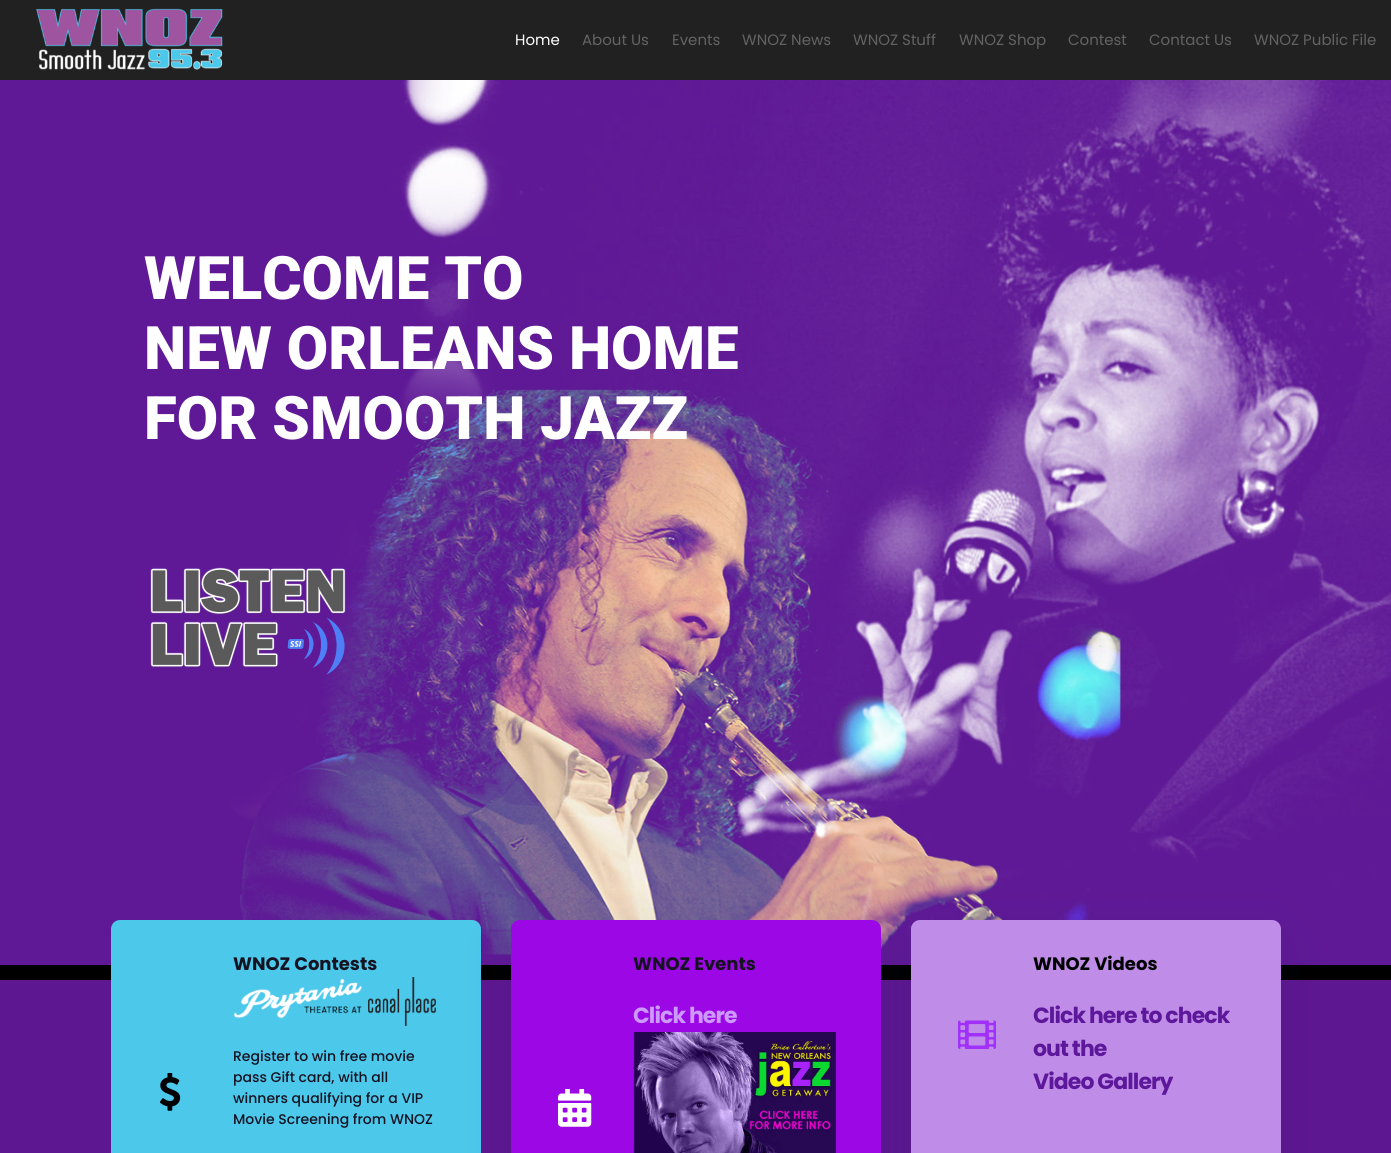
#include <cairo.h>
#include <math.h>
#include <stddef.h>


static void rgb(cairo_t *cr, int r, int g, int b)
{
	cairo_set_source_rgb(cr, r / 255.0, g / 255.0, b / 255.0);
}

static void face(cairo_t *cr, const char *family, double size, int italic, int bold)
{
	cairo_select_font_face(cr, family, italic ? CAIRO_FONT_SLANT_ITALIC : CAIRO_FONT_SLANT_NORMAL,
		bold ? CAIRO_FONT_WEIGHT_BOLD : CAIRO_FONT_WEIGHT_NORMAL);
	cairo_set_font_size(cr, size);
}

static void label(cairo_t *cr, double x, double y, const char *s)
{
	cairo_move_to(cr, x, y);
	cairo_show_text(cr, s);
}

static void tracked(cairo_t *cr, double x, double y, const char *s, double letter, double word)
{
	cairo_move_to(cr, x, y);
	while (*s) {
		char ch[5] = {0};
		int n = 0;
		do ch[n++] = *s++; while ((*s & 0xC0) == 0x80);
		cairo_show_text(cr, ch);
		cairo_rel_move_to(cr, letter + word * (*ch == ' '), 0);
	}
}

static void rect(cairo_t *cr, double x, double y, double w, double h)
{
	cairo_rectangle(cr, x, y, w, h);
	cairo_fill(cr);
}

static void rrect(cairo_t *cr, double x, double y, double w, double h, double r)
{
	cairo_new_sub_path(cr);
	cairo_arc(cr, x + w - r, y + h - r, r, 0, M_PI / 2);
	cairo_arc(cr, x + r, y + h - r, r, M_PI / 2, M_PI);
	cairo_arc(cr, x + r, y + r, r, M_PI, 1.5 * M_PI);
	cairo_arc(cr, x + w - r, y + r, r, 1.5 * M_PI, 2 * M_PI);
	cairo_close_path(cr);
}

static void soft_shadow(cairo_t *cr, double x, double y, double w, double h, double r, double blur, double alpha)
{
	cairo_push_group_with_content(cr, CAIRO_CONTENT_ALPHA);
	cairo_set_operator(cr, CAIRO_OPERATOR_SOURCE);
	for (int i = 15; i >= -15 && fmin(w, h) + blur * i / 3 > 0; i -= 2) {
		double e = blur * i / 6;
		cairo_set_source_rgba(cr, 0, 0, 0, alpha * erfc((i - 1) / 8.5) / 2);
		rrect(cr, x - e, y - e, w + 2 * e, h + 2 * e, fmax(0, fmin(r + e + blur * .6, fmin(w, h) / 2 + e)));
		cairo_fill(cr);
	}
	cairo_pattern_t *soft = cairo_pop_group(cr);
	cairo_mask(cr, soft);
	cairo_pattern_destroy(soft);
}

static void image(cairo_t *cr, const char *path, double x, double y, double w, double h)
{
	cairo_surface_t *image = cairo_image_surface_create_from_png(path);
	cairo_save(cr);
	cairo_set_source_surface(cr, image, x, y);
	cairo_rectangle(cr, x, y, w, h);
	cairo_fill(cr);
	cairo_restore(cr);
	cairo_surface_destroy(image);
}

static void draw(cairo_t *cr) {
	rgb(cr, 0, 0, 0);
	cairo_paint(cr);
	rgb(cr, 33, 33, 33);
	rect(cr, 0, 0, 1391, 80);
	image(cr, "image0.png", 36, 8, 187, 62);
	face(cr, "Poppins", 15, 0, 0);
	rgb(cr, 255, 255, 255);
	label(cr, 515, 45, "Home");
	rgb(cr, 99, 99, 99);
	label(cr, 582, 45, "About Us");
	label(cr, 672, 45, "Events");
	label(cr, 742, 45, "WNOZ News");
	label(cr, 853, 45, "WNOZ Stuff");
	label(cr, 959, 45, "WNOZ Shop");
	label(cr, 1068, 45, "Contest");
	label(cr, 1149, 45, "Contact Us");
	label(cr, 1254, 45, "WNOZ Public File");
	image(cr, "image1.png", 0, 80, 1391, 885);
	face(cr, "Roboto Black", 60, 0, 0);
	rgb(cr, 255, 255, 255);
	label(cr, 144, 299, "WELCOME TO");
	label(cr, 144, 369, "NEW ORLEANS HOME");
	label(cr, 144, 439, "FOR SMOOTH JAZZ");
	image(cr, "image2.png", 150, 567, 196, 108);
	rgb(cr, 93, 23, 145);
	rect(cr, 0, 980, 1391, 173);
	rgb(cr, 76, 200, 235);
	rrect(cr, 111, 920, 370, 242, 9);
	cairo_fill(cr);
	image(cr, "image3.png", 159, 1073, 22, 38);
	face(cr, "Poppins", 18, 0, 1);
	rgb(cr, 21, 18, 33);
	label(cr, 233, 970, "WNOZ Contests");
	image(cr, "image4.png", 233, 977, 203, 49);
	face(cr, "Poppins Medium", 14, 0, 0);
	label(cr, 233, 1061, "Register to win free movie");
	label(cr, 233, 1082, "pass Gift card, with all");
	label(cr, 233, 1103, "winners qualifying for a VIP");
	label(cr, 233, 1124, "Movie Screening from WNOZ");
	rgb(cr, 9, 31, 67);
	soft_shadow(cr, 516, 940, 360, 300, 4, 27.5, 0.1);
	rgb(cr, 156, 7, 230);
	rrect(cr, 511, 920, 370, 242, 9);
	cairo_fill(cr);
	face(cr, "Poppins", 18, 0, 1);
	rgb(cr, 21, 18, 33);
	label(cr, 633, 970, "WNOZ Events");
	face(cr, "Poppins", 22, 0, 1);
	rgb(cr, 204, 153, 255);
	tracked(cr, 633, 1023, "Click here", -0.9, 0);
	image(cr, "image5.png", 633, 1032, 203, 121);
	image(cr, "image6.png", 558, 1089, 34, 38);
	rgb(cr, 9, 31, 67);
	soft_shadow(cr, 916, 940, 360, 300, 4, 27.5, 0.1);
	rgb(cr, 191, 141, 232);
	rrect(cr, 911, 920, 370, 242, 9);
	cairo_fill(cr);
	image(cr, "image7.png", 958, 1020, 38, 29);
	face(cr, "Poppins", 18, 0, 1);
	rgb(cr, 0, 0, 0);
	label(cr, 1033, 970, "WNOZ Videos");
	face(cr, "Poppins", 22, 0, 1);
	rgb(cr, 93, 23, 155);
	tracked(cr, 1033, 1023, "Click here to check", -0.9, 0);
	tracked(cr, 1033, 1056, "out the", -0.9, 0);
	tracked(cr, 1033, 1089, "Video Gallery", -0.9, 0);
}

int main(void) {
	cairo_surface_t *surface = cairo_image_surface_create(CAIRO_FORMAT_RGB24, 1391, 1153);
	cairo_t *cr = cairo_create(surface);
	cairo_font_options_t *options = cairo_font_options_create();
	cairo_font_options_set_hint_metrics(options, CAIRO_HINT_METRICS_OFF);
	cairo_font_options_set_hint_style(options, CAIRO_HINT_STYLE_NONE);
	cairo_set_font_options(cr, options);
	cairo_set_miter_limit(cr, 4);
	draw(cr);
	cairo_surface_write_to_png(surface, "render.png");
	cairo_font_options_destroy(options);
	cairo_destroy(cr);
	cairo_surface_destroy(surface);
	return 0;
}
